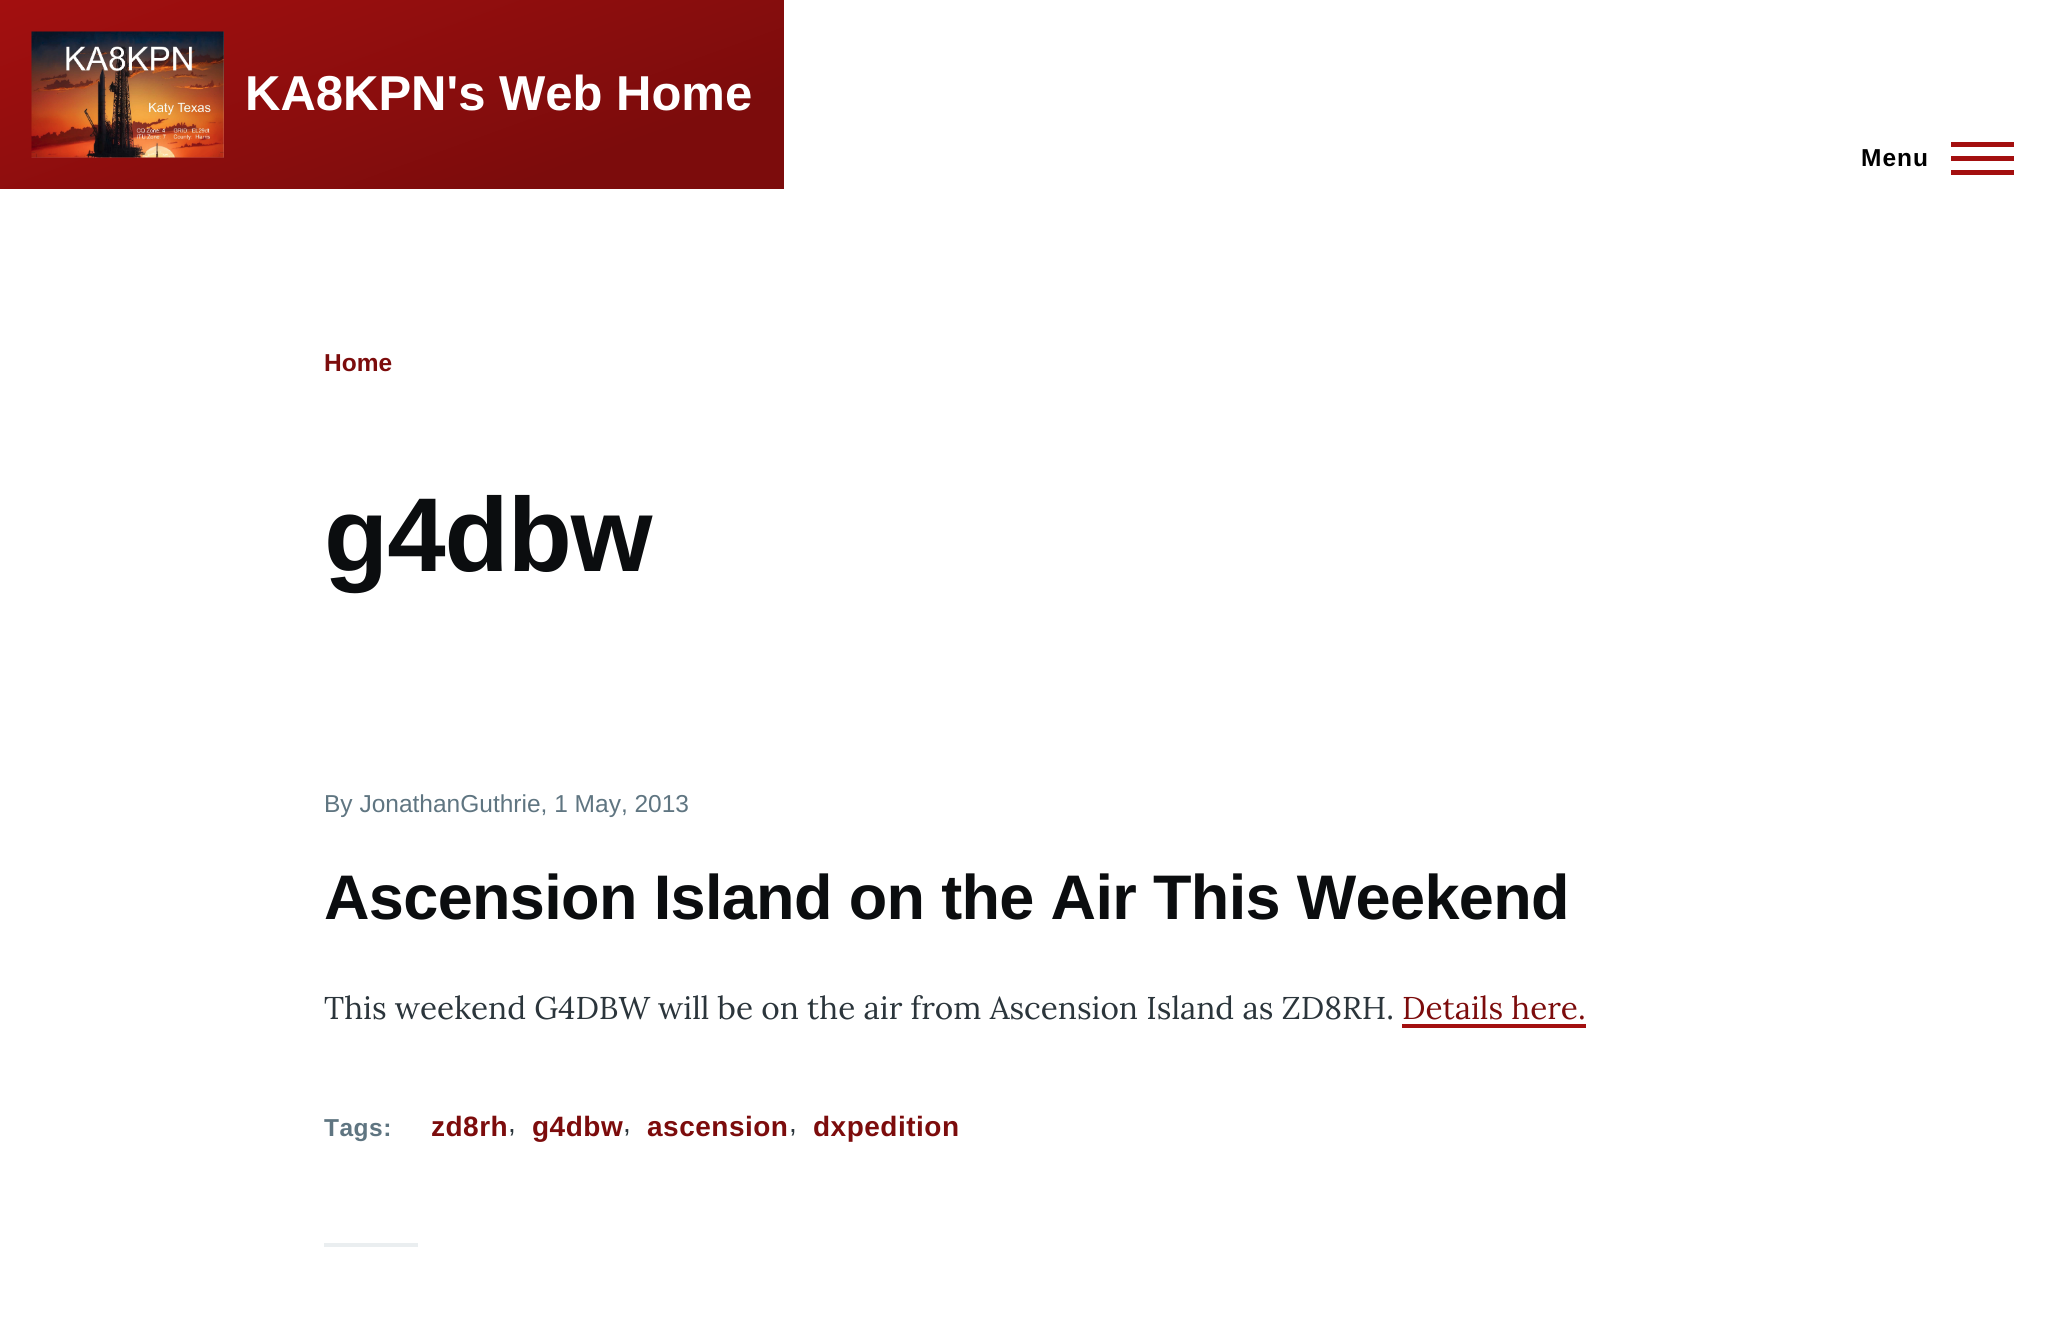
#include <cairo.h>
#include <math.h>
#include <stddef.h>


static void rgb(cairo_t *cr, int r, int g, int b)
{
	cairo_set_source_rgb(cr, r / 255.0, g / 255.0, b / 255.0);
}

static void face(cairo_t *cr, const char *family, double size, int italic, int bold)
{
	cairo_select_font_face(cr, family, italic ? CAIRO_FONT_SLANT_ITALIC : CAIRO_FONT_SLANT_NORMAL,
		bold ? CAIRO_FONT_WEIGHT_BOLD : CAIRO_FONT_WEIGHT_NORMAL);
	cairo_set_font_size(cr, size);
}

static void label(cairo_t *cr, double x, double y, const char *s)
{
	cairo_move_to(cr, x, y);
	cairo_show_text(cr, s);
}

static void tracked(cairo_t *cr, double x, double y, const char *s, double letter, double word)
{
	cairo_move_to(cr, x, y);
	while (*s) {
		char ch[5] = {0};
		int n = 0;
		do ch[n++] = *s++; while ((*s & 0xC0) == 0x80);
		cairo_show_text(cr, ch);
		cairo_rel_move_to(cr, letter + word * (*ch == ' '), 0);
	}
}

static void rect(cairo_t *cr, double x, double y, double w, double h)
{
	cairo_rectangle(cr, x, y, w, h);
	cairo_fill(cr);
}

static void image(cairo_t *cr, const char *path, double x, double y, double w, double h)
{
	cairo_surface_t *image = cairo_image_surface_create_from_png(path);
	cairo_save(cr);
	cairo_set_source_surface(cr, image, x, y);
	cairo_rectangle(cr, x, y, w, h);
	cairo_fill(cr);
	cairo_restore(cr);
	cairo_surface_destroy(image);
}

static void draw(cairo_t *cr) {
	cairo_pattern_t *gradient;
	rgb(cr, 255, 255, 255);
	cairo_paint(cr);
	gradient = cairo_pattern_create_linear(316, -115, 468, 304);
	cairo_pattern_add_color_stop_rgba(gradient, 0, 0.639, 0.059, 0.059, 1);
	cairo_pattern_add_color_stop_rgba(gradient, 0.79, 0.486, 0.047, 0.047, 1);
	cairo_set_source(cr, gradient);
	cairo_pattern_destroy(gradient);
	rect(cr, 0, 0, 784, 189);
	image(cr, "image0.png", 31, 31, 193, 127);
	face(cr, "Liberation Sans", 49, 0, 1);
	rgb(cr, 255, 255, 255);
	label(cr, 245, 110, "KA8KPN's Web Home");
	face(cr, "Liberation Sans", 24.5, 0, 1);
	rgb(cr, 0, 0, 0);
	tracked(cr, 1861, 166, "Menu", 1, 0);
	rgb(cr, 163, 15, 15);
	rect(cr, 1951, 156, 63, 5);
	rect(cr, 1951, 142, 63, 5);
	rect(cr, 1951, 170, 63, 5);
	rgb(cr, 124, 12, 12);
	label(cr, 324, 371, "Home");
	face(cr, "Liberation Sans", 105, 0, 1);
	rgb(cr, 11, 13, 15);
	tracked(cr, 324, 571, "g4dbw", -1, 0);
	face(cr, "Liberation Sans", 24.5, 0, 0);
	rgb(cr, 95, 117, 129);
	label(cr, 324, 812, "By JonathanGuthrie, 1 May, 2013");
	face(cr, "Liberation Sans", 63, 0, 1);
	rgb(cr, 11, 13, 15);
	tracked(cr, 324, 919, "Ascension Island on the Air This Weekend", -0.65, 0);
	face(cr, "Lora", 31.5, 0, 0);
	rgb(cr, 43, 53, 59);
	label(cr, 324, 1019, "This weekend G4DBW will be on the air from Ascension Island as ZD8RH.");
	rgb(cr, 124, 12, 12);
	label(cr, 1402, 1019, "Details here.");
	rgb(cr, 163, 15, 15);
	rect(cr, 1402, 1024, 184, 4);
	face(cr, "Liberation Sans", 24.5, 0, 1);
	rgb(cr, 95, 117, 129);
	tracked(cr, 324, 1136, "Tags:", 0.5, 0);
	face(cr, "Liberation Sans", 28, 0, 1);
	rgb(cr, 124, 12, 12);
	tracked(cr, 431, 1136, "zd8rh", 0.5, 0);
	face(cr, "Liberation Sans", 28, 0, 0);
	rgb(cr, 43, 53, 59);
	label(cr, 508, 1132, ",");
	face(cr, "Liberation Sans", 28, 0, 1);
	rgb(cr, 124, 12, 12);
	tracked(cr, 532, 1136, "g4dbw", 0.5, 0);
	face(cr, "Liberation Sans", 28, 0, 0);
	rgb(cr, 43, 53, 59);
	label(cr, 623, 1132, ",");
	face(cr, "Liberation Sans", 28, 0, 1);
	rgb(cr, 124, 12, 12);
	tracked(cr, 647, 1136, "ascension", 0.5, 0);
	face(cr, "Liberation Sans", 28, 0, 0);
	rgb(cr, 43, 53, 59);
	label(cr, 789, 1132, ",");
	face(cr, "Liberation Sans", 28, 0, 1);
	rgb(cr, 124, 12, 12);
	tracked(cr, 813, 1136, "dxpedition", 0.5, 0);
	rgb(cr, 234, 238, 240);
	rect(cr, 324, 1243, 94, 4);
}

int main(void) {
	cairo_surface_t *surface = cairo_image_surface_create(CAIRO_FORMAT_RGB24, 2045, 1327);
	cairo_t *cr = cairo_create(surface);
	cairo_font_options_t *options = cairo_font_options_create();
	cairo_font_options_set_hint_metrics(options, CAIRO_HINT_METRICS_OFF);
	cairo_font_options_set_hint_style(options, CAIRO_HINT_STYLE_NONE);
	cairo_set_font_options(cr, options);
	cairo_set_miter_limit(cr, 4);
	draw(cr);
	cairo_surface_write_to_png(surface, "render.png");
	cairo_font_options_destroy(options);
	cairo_destroy(cr);
	cairo_surface_destroy(surface);
	return 0;
}
